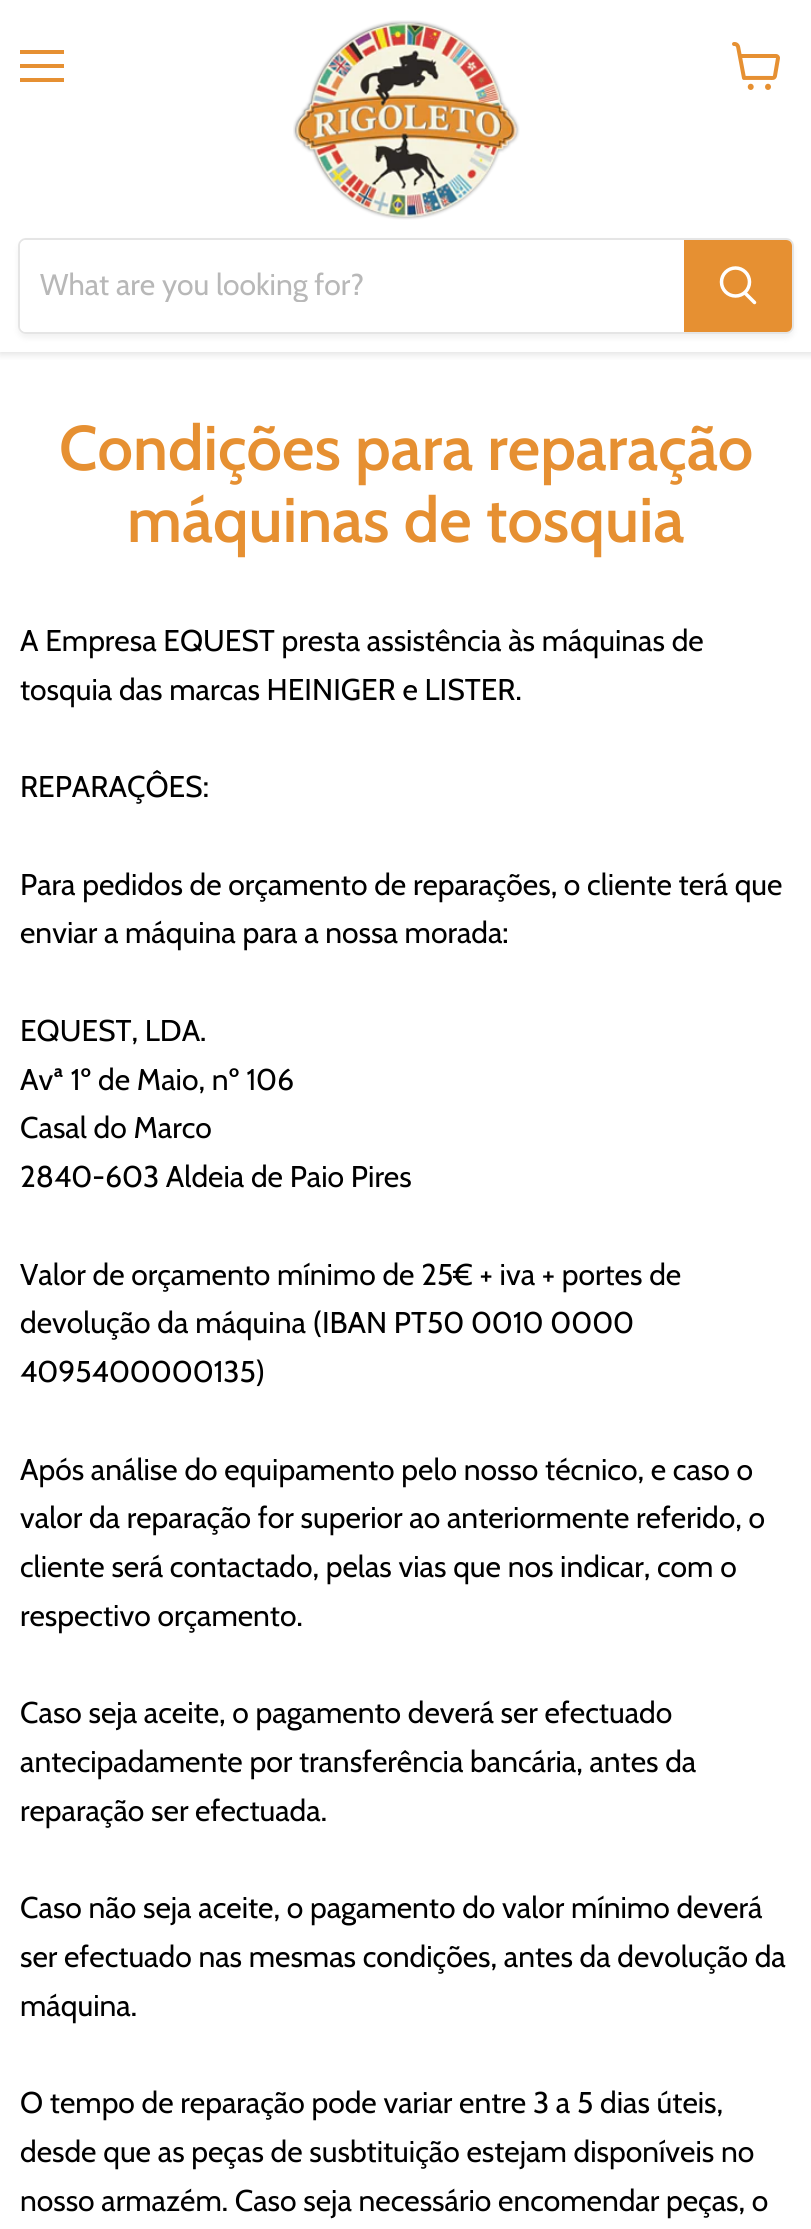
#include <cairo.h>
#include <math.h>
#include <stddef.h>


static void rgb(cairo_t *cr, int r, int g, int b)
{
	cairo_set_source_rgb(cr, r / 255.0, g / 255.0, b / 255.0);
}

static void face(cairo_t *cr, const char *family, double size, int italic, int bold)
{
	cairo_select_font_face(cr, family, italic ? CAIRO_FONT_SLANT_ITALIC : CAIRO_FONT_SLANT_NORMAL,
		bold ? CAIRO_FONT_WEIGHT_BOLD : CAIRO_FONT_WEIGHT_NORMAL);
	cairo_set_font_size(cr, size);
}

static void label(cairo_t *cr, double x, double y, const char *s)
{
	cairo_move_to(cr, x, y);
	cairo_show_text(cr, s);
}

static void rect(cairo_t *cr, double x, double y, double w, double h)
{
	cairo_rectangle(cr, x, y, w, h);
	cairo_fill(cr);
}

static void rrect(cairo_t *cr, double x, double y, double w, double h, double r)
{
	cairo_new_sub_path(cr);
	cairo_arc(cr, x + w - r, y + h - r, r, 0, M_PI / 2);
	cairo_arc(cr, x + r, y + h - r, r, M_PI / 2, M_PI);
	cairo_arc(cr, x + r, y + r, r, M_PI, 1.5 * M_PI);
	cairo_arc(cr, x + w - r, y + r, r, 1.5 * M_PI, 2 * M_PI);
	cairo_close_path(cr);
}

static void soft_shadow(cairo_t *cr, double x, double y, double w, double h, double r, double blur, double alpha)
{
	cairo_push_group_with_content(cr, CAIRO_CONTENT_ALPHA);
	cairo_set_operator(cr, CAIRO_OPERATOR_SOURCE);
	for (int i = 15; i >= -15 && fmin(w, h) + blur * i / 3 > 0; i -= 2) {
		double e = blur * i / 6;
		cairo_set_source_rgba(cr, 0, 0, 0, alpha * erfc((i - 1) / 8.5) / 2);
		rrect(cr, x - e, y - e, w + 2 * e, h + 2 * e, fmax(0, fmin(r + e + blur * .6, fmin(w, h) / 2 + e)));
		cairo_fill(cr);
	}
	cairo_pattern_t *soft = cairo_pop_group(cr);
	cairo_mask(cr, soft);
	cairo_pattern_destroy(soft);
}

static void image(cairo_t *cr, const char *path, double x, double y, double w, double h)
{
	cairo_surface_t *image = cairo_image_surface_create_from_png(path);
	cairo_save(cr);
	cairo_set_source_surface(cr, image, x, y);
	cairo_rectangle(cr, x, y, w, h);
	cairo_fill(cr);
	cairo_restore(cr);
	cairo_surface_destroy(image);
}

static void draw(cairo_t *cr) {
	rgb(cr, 255, 255, 255);
	cairo_paint(cr);
	cairo_save(cr);
	cairo_rectangle(cr, 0, 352, 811, 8);
	cairo_clip(cr);
	rgb(cr, 128, 128, 128);
	soft_shadow(cr, 0, 2, 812, 352, 0, 4, 0.25);
	cairo_restore(cr);
	rgb(cr, 230, 144, 50);
	rect(cr, 20, 50, 44, 4);
	rect(cr, 20, 64, 44, 4);
	rect(cr, 20, 78, 44, 4);
	image(cr, "image0.png", 732, 42, 48, 48);
	image(cr, "image1.png", 293, 20, 227, 200);
	cairo_save(cr);
	cairo_set_fill_rule(cr, CAIRO_FILL_RULE_EVEN_ODD);
	cairo_new_path(cr);
	cairo_move_to(cr, 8, 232);
	cairo_line_to(cr, 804, 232);
	cairo_line_to(cr, 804, 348);
	cairo_line_to(cr, 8, 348);
	cairo_close_path(cr);
	cairo_move_to(cr, 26, 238);
	cairo_line_to(cr, 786, 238);
	cairo_curve_to(cr, 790.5, 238, 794, 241.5, 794, 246);
	cairo_line_to(cr, 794, 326);
	cairo_curve_to(cr, 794, 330.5, 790.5, 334, 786, 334);
	cairo_line_to(cr, 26, 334);
	cairo_curve_to(cr, 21.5, 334, 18, 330.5, 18, 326);
	cairo_line_to(cr, 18, 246);
	cairo_curve_to(cr, 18, 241.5, 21.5, 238, 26, 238);
	cairo_close_path(cr);
	cairo_clip(cr);
	rgb(cr, 128, 128, 128);
	soft_shadow(cr, 18, 242, 776, 96, 8, 3, 0.11);
	cairo_restore(cr);
	rrect(cr, 19, 239, 774, 94, 7);
	cairo_set_source_rgba(cr, 0.502, 0.502, 0.502, 0.2);
	cairo_stroke(cr);
	rgb(cr, 255, 255, 255);
	cairo_new_path(cr);
	cairo_move_to(cr, 26, 240);
	cairo_line_to(cr, 684, 240);
	cairo_line_to(cr, 684, 332);
	cairo_line_to(cr, 26, 332);
	cairo_curve_to(cr, 22.5, 332, 20, 329.5, 20, 326);
	cairo_line_to(cr, 20, 246);
	cairo_curve_to(cr, 20, 242.5, 22.5, 240, 26, 240);
	cairo_close_path(cr);
	cairo_fill(cr);
	cairo_save(cr);
	cairo_rectangle(cr, 40, 266, 624, 36);
	cairo_clip(cr);
	face(cr, "Cabin", 30, 0, 0);
	rgb(cr, 184, 184, 184);
	label(cr, 40, 295, "What are you looking for?");
	cairo_restore(cr);
	rgb(cr, 230, 144, 50);
	cairo_new_path(cr);
	cairo_move_to(cr, 685, 241);
	cairo_line_to(cr, 786, 241);
	cairo_curve_to(cr, 789, 241, 791, 243, 791, 246);
	cairo_line_to(cr, 791, 326);
	cairo_curve_to(cr, 791, 329, 789, 331, 786, 331);
	cairo_line_to(cr, 685, 331);
	cairo_close_path(cr);
	cairo_fill_preserve(cr);
	cairo_stroke(cr);
	cairo_new_path(cr);
	cairo_move_to(cr, 754.5, 302.5);
	cairo_line_to(cr, 745, 293);
	rgb(cr, 255, 255, 255);
	cairo_set_line_width(cr, 3.5);
	cairo_set_line_cap(cr, CAIRO_LINE_CAP_ROUND);
	cairo_stroke(cr);
	cairo_arc(cr, 735.5, 282, 14, 0, 2 * M_PI);
	cairo_set_line_cap(cr, CAIRO_LINE_CAP_BUTT);
	cairo_stroke(cr);
	face(cr, "Cabin SemiBold", 63, 0, 0);
	rgb(cr, 230, 144, 50);
	label(cr, 59, 470, "Condições para reparação");
	label(cr, 127, 542, "máquinas de tosquia");
	face(cr, "Cabin", 30, 0, 0);
	rgb(cr, 0, 0, 0);
	label(cr, 20, 651, "A Empresa EQUEST presta assistência às máquinas de");
	label(cr, 20, 700, "tosquia das marcas HEINIGER e LISTER.");
	label(cr, 20, 797, "REPARAÇÔES:");
	label(cr, 20, 895, "Para pedidos de orçamento de reparações, o cliente terá que");
	label(cr, 20, 943, "enviar a máquina para a nossa morada:");
	label(cr, 20, 1041, "EQUEST, LDA.");
	label(cr, 20, 1090, "Avª 1º de Maio, nº 106");
	label(cr, 20, 1138, "Casal do Marco");
	label(cr, 20, 1187, "2840-603 Aldeia de Paio Pires");
	label(cr, 20, 1285, "Valor de orçamento mínimo de 25€ + iva + portes de");
	label(cr, 20, 1333, "devolução da máquina (IBAN PT50 0010 0000");
	label(cr, 20, 1382, "4095400000135)");
	label(cr, 20, 1480, "Após análise do equipamento pelo nosso técnico, e caso o");
	label(cr, 20, 1528, "valor da reparação for superior ao anteriormente referido, o");
	label(cr, 20, 1577, "cliente será contactado, pelas vias que nos indicar, com o");
	label(cr, 20, 1626, "respectivo orçamento.");
	label(cr, 20, 1723, "Caso seja aceite, o pagamento deverá ser efectuado");
	label(cr, 20, 1772, "antecipadamente por transferência bancária, antes da");
	label(cr, 20, 1821, "reparação ser efectuada.");
	label(cr, 20, 1918, "Caso não seja aceite, o pagamento do valor mínimo deverá");
	label(cr, 20, 1967, "ser efectuado nas mesmas condições, antes da devolução da");
	label(cr, 20, 2016, "máquina.");
	label(cr, 20, 2113, "O tempo de reparação pode variar entre 3 a 5 dias úteis,");
	label(cr, 20, 2162, "desde que as peças de susbtituição estejam disponíveis no");
	label(cr, 20, 2211, "nosso armazém. Caso seja necessário encomendar peças, o");
}

int main(void) {
	cairo_surface_t *surface = cairo_image_surface_create(CAIRO_FORMAT_RGB24, 811, 2229);
	cairo_t *cr = cairo_create(surface);
	cairo_font_options_t *options = cairo_font_options_create();
	cairo_font_options_set_hint_metrics(options, CAIRO_HINT_METRICS_OFF);
	cairo_font_options_set_hint_style(options, CAIRO_HINT_STYLE_NONE);
	cairo_set_font_options(cr, options);
	cairo_set_miter_limit(cr, 4);
	draw(cr);
	cairo_surface_write_to_png(surface, "render.png");
	cairo_font_options_destroy(options);
	cairo_destroy(cr);
	cairo_surface_destroy(surface);
	return 0;
}
